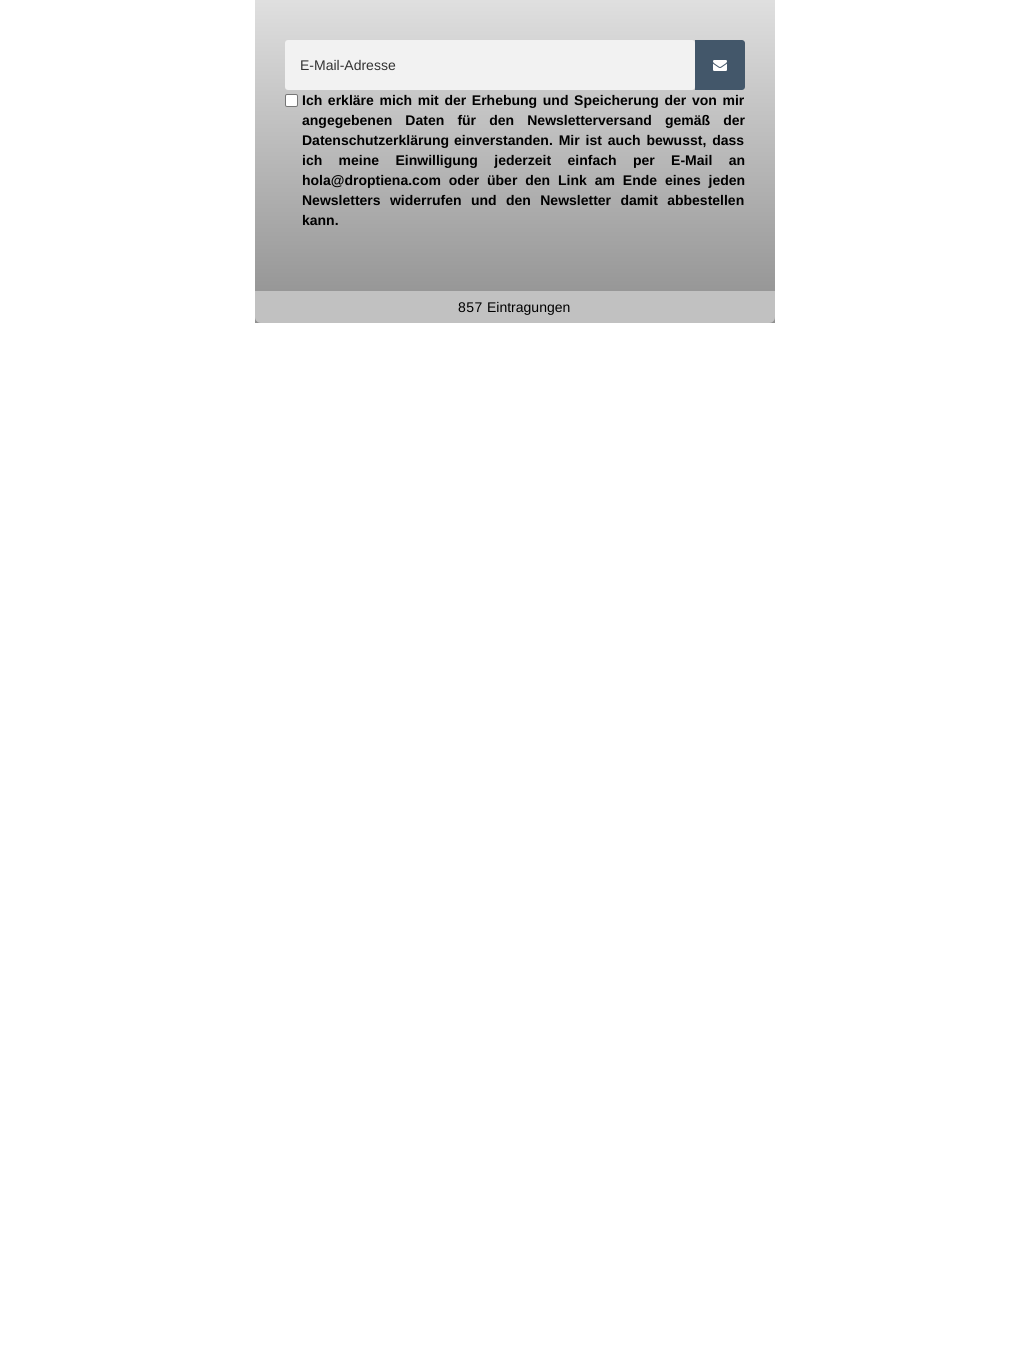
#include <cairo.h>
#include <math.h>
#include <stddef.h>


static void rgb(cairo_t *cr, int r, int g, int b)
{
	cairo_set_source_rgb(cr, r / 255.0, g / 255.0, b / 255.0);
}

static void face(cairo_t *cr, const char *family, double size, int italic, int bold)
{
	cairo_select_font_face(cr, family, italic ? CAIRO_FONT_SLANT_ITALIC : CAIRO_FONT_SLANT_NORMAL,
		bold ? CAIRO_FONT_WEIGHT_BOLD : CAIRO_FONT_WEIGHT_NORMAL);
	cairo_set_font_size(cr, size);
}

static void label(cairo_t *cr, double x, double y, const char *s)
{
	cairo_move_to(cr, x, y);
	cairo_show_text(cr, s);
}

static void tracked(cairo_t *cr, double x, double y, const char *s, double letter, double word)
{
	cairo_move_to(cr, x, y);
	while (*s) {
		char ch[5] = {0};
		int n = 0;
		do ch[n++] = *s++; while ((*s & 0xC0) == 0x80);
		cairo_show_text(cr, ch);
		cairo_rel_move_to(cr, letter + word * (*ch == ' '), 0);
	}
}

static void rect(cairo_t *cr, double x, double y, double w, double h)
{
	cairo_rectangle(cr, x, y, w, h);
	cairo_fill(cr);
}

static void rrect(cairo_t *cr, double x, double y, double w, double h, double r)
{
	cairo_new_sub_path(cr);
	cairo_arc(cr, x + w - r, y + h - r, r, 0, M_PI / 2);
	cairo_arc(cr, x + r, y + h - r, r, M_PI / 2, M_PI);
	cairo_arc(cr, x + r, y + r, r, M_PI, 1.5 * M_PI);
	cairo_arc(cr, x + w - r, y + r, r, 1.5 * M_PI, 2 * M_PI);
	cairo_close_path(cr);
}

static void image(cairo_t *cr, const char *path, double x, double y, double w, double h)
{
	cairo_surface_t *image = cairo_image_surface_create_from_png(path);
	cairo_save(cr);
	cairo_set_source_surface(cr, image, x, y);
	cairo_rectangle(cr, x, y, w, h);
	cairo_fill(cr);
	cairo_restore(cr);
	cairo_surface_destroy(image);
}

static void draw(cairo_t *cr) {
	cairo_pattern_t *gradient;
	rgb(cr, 255, 255, 255);
	cairo_paint(cr);
	gradient = cairo_pattern_create_linear(515, 0, 515, 323);
	cairo_pattern_add_color_stop_rgba(gradient, 0, 0.875, 0.875, 0.875, 1);
	cairo_pattern_add_color_stop_rgba(gradient, 1, 0.561, 0.561, 0.561, 1);
	cairo_set_source(cr, gradient);
	cairo_pattern_destroy(gradient);
	rect(cr, 255, 0, 520, 323);
	rgb(cr, 242, 242, 242);
	rrect(cr, 285, 40, 410, 50, 3);
	cairo_fill(cr);
	face(cr, "Liberation Sans", 14, 0, 0);
	rgb(cr, 51, 51, 51);
	label(cr, 300, 70, "E-Mail-Adresse");
	rgb(cr, 67, 87, 106);
	cairo_new_path(cr);
	cairo_move_to(cr, 695, 40);
	cairo_line_to(cr, 742, 40);
	cairo_curve_to(cr, 743.5, 40, 745, 41.5, 745, 43);
	cairo_line_to(cr, 745, 87);
	cairo_curve_to(cr, 745, 88.5, 743.5, 90, 742, 90);
	cairo_line_to(cr, 695, 90);
	cairo_close_path(cr);
	cairo_fill(cr);
	image(cr, "image0.png", 713, 60, 14, 11);
	rgb(cr, 255, 255, 255);
	rrect(cr, 285.5, 94.5, 12, 12, 1.5);
	cairo_fill_preserve(cr);
	rgb(cr, 118, 118, 118);
	cairo_set_line_width(cr, 1);
	cairo_stroke(cr);
	face(cr, "Liberation Sans", 14, 0, 1);
	rgb(cr, 0, 0, 0);
	tracked(cr, 302, 105, "Ich erkläre mich mit der Erhebung und Speicherung der von mir", 0, 1.75);
	tracked(cr, 302, 125, "angegebenen Daten für den Newsletterversand gemäß der", 0, 9.25);
	label(cr, 302, 145, "Datenschutzerklärung");
	tracked(cr, 454, 145, "einverstanden. Mir ist auch bewusst, dass", 0, 2);
	tracked(cr, 302, 165, "ich meine Einwilligung jederzeit einfach per E-Mail an", 0, 12.5);
	tracked(cr, 302, 185, "hola@droptiena.com oder über den Link am Ende eines jeden", 0, 4);
	tracked(cr, 302, 205, "Newsletters widerrufen und den Newsletter damit abbestellen", 0, 5.5);
	label(cr, 302, 225, "kann.");
	rgb(cr, 193, 193, 193);
	cairo_new_path(cr);
	cairo_move_to(cr, 255, 291);
	cairo_line_to(cr, 775, 291);
	cairo_line_to(cr, 775, 317);
	cairo_curve_to(cr, 775, 320.5, 772.5, 323, 769, 323);
	cairo_line_to(cr, 261, 323);
	cairo_curve_to(cr, 257.5, 323, 255, 320.5, 255, 317);
	cairo_close_path(cr);
	cairo_fill(cr);
	face(cr, "Liberation Sans", 14, 0, 0);
	rgb(cr, 0, 0, 0);
	tracked(cr, 458, 312, "857", 0.5, 0);
	label(cr, 487, 312, "Eintragungen");
}

int main(void) {
	cairo_surface_t *surface = cairo_image_surface_create(CAIRO_FORMAT_RGB24, 1029, 1367);
	cairo_t *cr = cairo_create(surface);
	cairo_font_options_t *options = cairo_font_options_create();
	cairo_font_options_set_hint_metrics(options, CAIRO_HINT_METRICS_OFF);
	cairo_font_options_set_hint_style(options, CAIRO_HINT_STYLE_NONE);
	cairo_set_font_options(cr, options);
	cairo_set_miter_limit(cr, 4);
	draw(cr);
	cairo_surface_write_to_png(surface, "render.png");
	cairo_font_options_destroy(options);
	cairo_destroy(cr);
	cairo_surface_destroy(surface);
	return 0;
}
